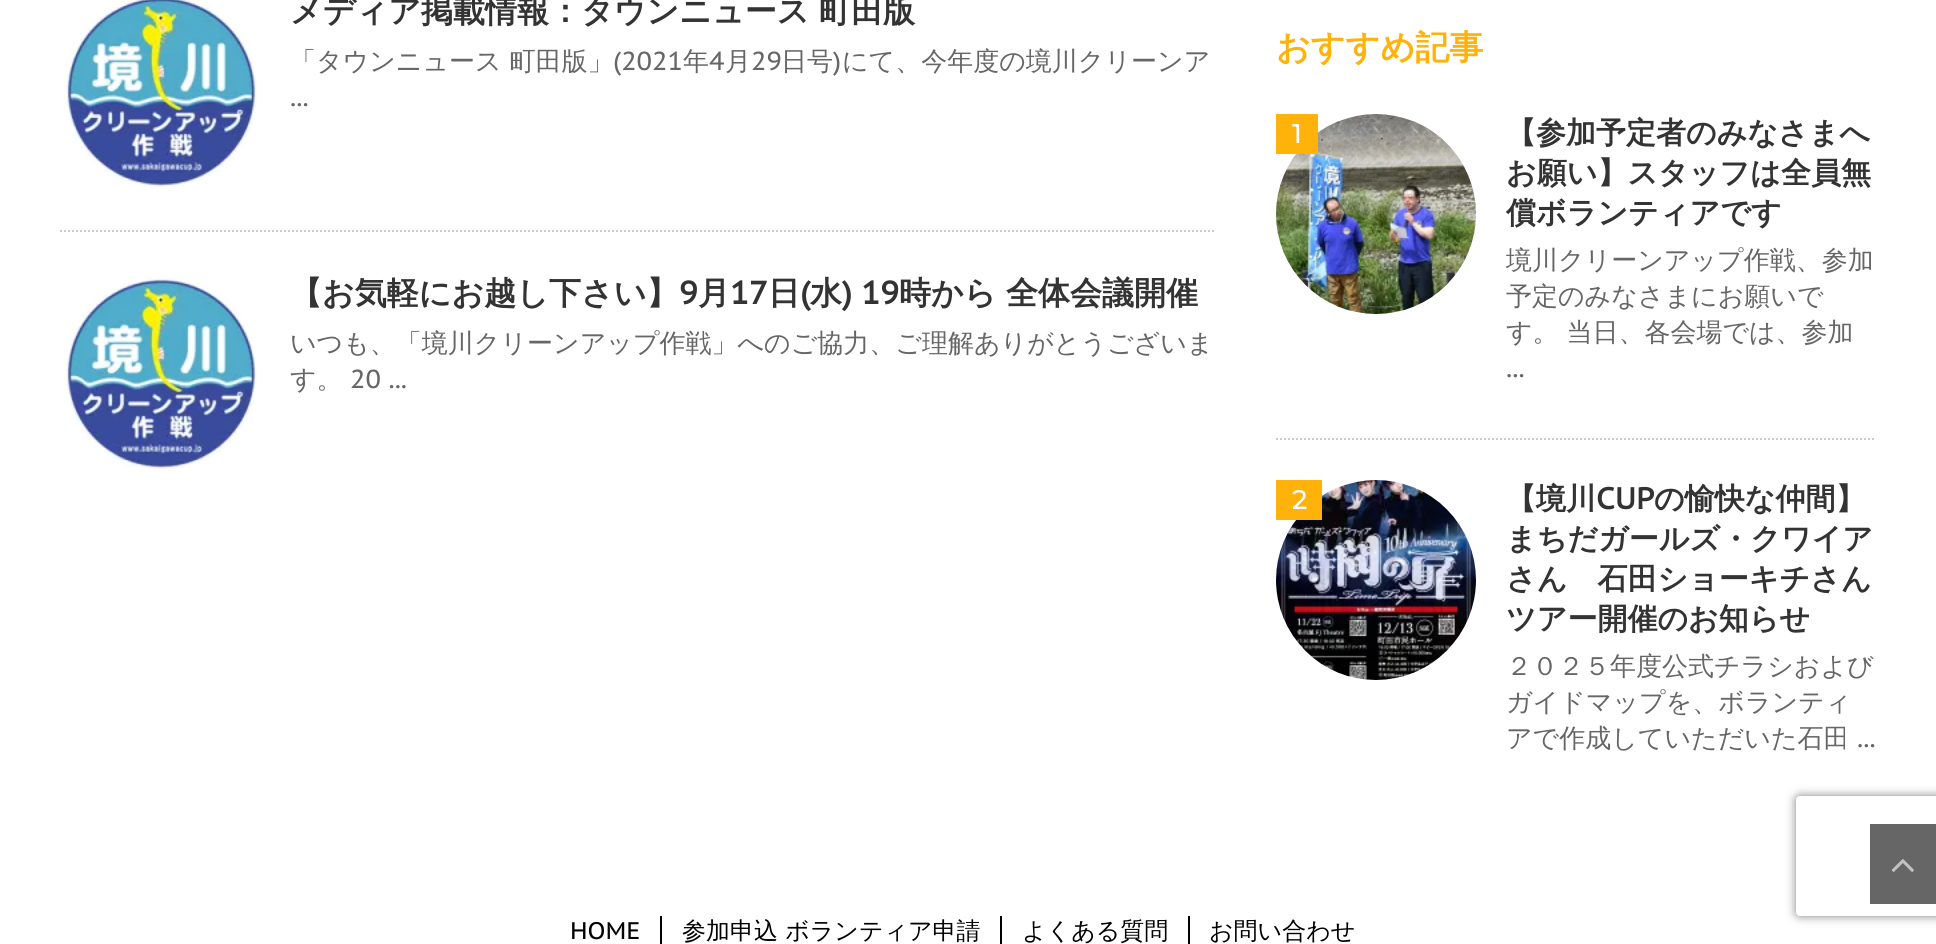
#include <cairo.h>
#include <math.h>
#include <stddef.h>


static void rgb(cairo_t *cr, int r, int g, int b)
{
	cairo_set_source_rgb(cr, r / 255.0, g / 255.0, b / 255.0);
}

static void face(cairo_t *cr, const char *family, double size, int italic, int bold)
{
	cairo_select_font_face(cr, family, italic ? CAIRO_FONT_SLANT_ITALIC : CAIRO_FONT_SLANT_NORMAL,
		bold ? CAIRO_FONT_WEIGHT_BOLD : CAIRO_FONT_WEIGHT_NORMAL);
	cairo_set_font_size(cr, size);
}

static void label(cairo_t *cr, double x, double y, const char *s)
{
	cairo_move_to(cr, x, y);
	cairo_show_text(cr, s);
}

static void rect(cairo_t *cr, double x, double y, double w, double h)
{
	cairo_rectangle(cr, x, y, w, h);
	cairo_fill(cr);
}

static void rrect(cairo_t *cr, double x, double y, double w, double h, double r)
{
	cairo_new_sub_path(cr);
	cairo_arc(cr, x + w - r, y + h - r, r, 0, M_PI / 2);
	cairo_arc(cr, x + r, y + h - r, r, M_PI / 2, M_PI);
	cairo_arc(cr, x + r, y + r, r, M_PI, 1.5 * M_PI);
	cairo_arc(cr, x + w - r, y + r, r, 1.5 * M_PI, 2 * M_PI);
	cairo_close_path(cr);
}

static void soft_shadow(cairo_t *cr, double x, double y, double w, double h, double r, double blur, double alpha)
{
	cairo_push_group_with_content(cr, CAIRO_CONTENT_ALPHA);
	cairo_set_operator(cr, CAIRO_OPERATOR_SOURCE);
	for (int i = 15; i >= -15 && fmin(w, h) + blur * i / 3 > 0; i -= 2) {
		double e = blur * i / 6;
		cairo_set_source_rgba(cr, 0, 0, 0, alpha * erfc((i - 1) / 8.5) / 2);
		rrect(cr, x - e, y - e, w + 2 * e, h + 2 * e, fmax(0, fmin(r + e + blur * .6, fmin(w, h) / 2 + e)));
		cairo_fill(cr);
	}
	cairo_pattern_t *soft = cairo_pop_group(cr);
	cairo_mask(cr, soft);
	cairo_pattern_destroy(soft);
}

static void image(cairo_t *cr, const char *path, double x, double y, double w, double h)
{
	cairo_surface_t *image = cairo_image_surface_create_from_png(path);
	cairo_save(cr);
	cairo_set_source_surface(cr, image, x, y);
	cairo_rectangle(cr, x, y, w, h);
	cairo_fill(cr);
	cairo_restore(cr);
	cairo_surface_destroy(image);
}

static void draw(cairo_t *cr) {
	rgb(cr, 255, 255, 255);
	cairo_paint(cr);
	cairo_new_path(cr);
	cairo_move_to(cr, 60, 231);
	cairo_line_to(cr, 1216, 231);
	rgb(cr, 204, 204, 204);
	cairo_set_dash(cr, (double[]){2, 2}, 2, 0);
	cairo_stroke(cr);
	image(cr, "image0.png", 66, 0, 191, 187);
	face(cr, "WenQuanYi Zen Hei", 32, 0, 1);
	rgb(cr, 51, 51, 51);
	label(cr, 290, 22, "メディア掲載情報：タウンニュース");
	label(cr, 819, 22, "町田版");
	face(cr, "WenQuanYi Zen Hei Medium", 26, 0, 0);
	rgb(cr, 102, 102, 102);
	label(cr, 290, 70, "「タウンニュース 町田版」");
	face(cr, "PT Sans Caption", 26, 0, 0);
	label(cr, 613, 70, "(2021");
	face(cr, "WenQuanYi Zen Hei Medium", 26, 0, 0);
	label(cr, 683, 70, "年");
	face(cr, "PT Sans Caption", 26, 0, 0);
	label(cr, 709, 70, "4");
	face(cr, "WenQuanYi Zen Hei Medium", 26, 0, 0);
	label(cr, 725, 70, "月");
	face(cr, "PT Sans Caption", 26, 0, 0);
	label(cr, 751, 70, "29");
	face(cr, "WenQuanYi Zen Hei Medium", 26, 0, 0);
	label(cr, 781, 70, "日号");
	face(cr, "PT Sans Caption", 26, 0, 0);
	label(cr, 833, 70, ")");
	face(cr, "WenQuanYi Zen Hei Medium", 26, 0, 0);
	label(cr, 842, 70, "にて、今年度の境川クリーンア");
	face(cr, "PT Sans Caption", 26, 0, 0);
	label(cr, 290, 106, "...");
	image(cr, "image1.png", 66, 272, 191, 197);
	face(cr, "WenQuanYi Zen Hei", 32, 0, 1);
	rgb(cr, 51, 51, 51);
	label(cr, 290, 304, "【お気軽にお越し下さい】");
	face(cr, "PT Sans Caption", 32, 0, 1);
	label(cr, 679, 304, "9");
	face(cr, "WenQuanYi Zen Hei", 32, 0, 1);
	label(cr, 698, 304, "月");
	face(cr, "PT Sans Caption", 32, 0, 1);
	label(cr, 730, 304, "17");
	face(cr, "WenQuanYi Zen Hei", 32, 0, 1);
	label(cr, 768, 304, "日");
	face(cr, "PT Sans Caption", 32, 0, 1);
	label(cr, 800, 304, "(");
	face(cr, "WenQuanYi Zen Hei", 32, 0, 1);
	label(cr, 810, 304, "水");
	face(cr, "PT Sans Caption", 32, 0, 1);
	label(cr, 842, 304, ") 19");
	face(cr, "WenQuanYi Zen Hei", 32, 0, 1);
	label(cr, 899, 304, "時から 全体会議開催");
	face(cr, "WenQuanYi Zen Hei Medium", 26, 0, 0);
	rgb(cr, 102, 102, 102);
	label(cr, 290, 352, "いつも、「境川クリーンアップ作戦」へのご協力、ご理解ありがとうございま");
	label(cr, 290, 388, "す。");
	face(cr, "PT Sans Caption", 26, 0, 0);
	label(cr, 350, 388, "20 ...");
	face(cr, "WenQuanYi Zen Hei", 34, 0, 1);
	rgb(cr, 254, 178, 10);
	label(cr, 1276, 59, "おすすめ記事");
	cairo_new_path(cr);
	cairo_move_to(cr, 1276, 439);
	cairo_line_to(cr, 1876, 439);
	rgb(cr, 204, 204, 204);
	cairo_stroke(cr);
	image(cr, "image2.png", 1276, 114, 200, 200);
	rgb(cr, 254, 178, 10);
	rect(cr, 1276, 114, 42, 40);
	face(cr, "Montserrat", 26, 0, 1);
	rgb(cr, 255, 255, 255);
	label(cr, 1292, 143, "1");
	face(cr, "WenQuanYi Zen Hei", 30, 0, 1);
	rgb(cr, 51, 51, 51);
	label(cr, 1506, 143, "【参加予定者のみなさまへ");
	label(cr, 1506, 183, "お願い】スタッフは全員無");
	label(cr, 1506, 223, "償ボランティアです");
	face(cr, "WenQuanYi Zen Hei Medium", 26, 0, 0);
	rgb(cr, 102, 102, 102);
	label(cr, 1506, 269, "境川クリーンアップ作戦、参加");
	label(cr, 1506, 305, "予定のみなさまにお願いで");
	label(cr, 1506, 341, "す。 当日、各会場では、参加");
	face(cr, "PT Sans Caption", 26, 0, 0);
	label(cr, 1506, 377, "...");
	image(cr, "image3.png", 1276, 480, 200, 200);
	rgb(cr, 254, 178, 10);
	rect(cr, 1276, 480, 46, 40);
	face(cr, "Montserrat", 26, 0, 1);
	rgb(cr, 255, 255, 255);
	label(cr, 1292, 509, "2");
	face(cr, "WenQuanYi Zen Hei", 30, 0, 1);
	rgb(cr, 51, 51, 51);
	label(cr, 1506, 509, "【境川");
	face(cr, "PT Sans Caption", 30, 0, 1);
	label(cr, 1596, 509, "CUP");
	face(cr, "WenQuanYi Zen Hei", 30, 0, 1);
	label(cr, 1654, 509, "の愉快な仲間】");
	label(cr, 1506, 549, "まちだガールズ・クワイア");
	label(cr, 1506, 589, "さん　石田ショーキチさん");
	label(cr, 1506, 629, "ツアー開催のお知らせ");
	face(cr, "WenQuanYi Zen Hei Medium", 26, 0, 0);
	rgb(cr, 102, 102, 102);
	label(cr, 1506, 675, "２０２５年度公式チラシおよび");
	label(cr, 1506, 711, "ガイドマップを、ボランティ");
	label(cr, 1506, 747, "アで作成していただいた石田");
	face(cr, "PT Sans Caption", 26, 0, 0);
	label(cr, 1857, 747, "...");
	face(cr, "PT Sans Caption", 24, 0, 0);
	rgb(cr, 0, 0, 0);
	label(cr, 570, 939, "HOME");
	rect(cr, 660, 916, 2, 28);
	face(cr, "WenQuanYi Zen Hei Medium", 24, 0, 0);
	label(cr, 682, 939, "参加申込 ボランティア申請");
	rect(cr, 1000, 916, 2, 28);
	label(cr, 1022, 939, "よくある質問");
	rect(cr, 1188, 916, 2, 28);
	label(cr, 1209, 939, "お問い合わせ");
	cairo_save(cr);
	cairo_set_fill_rule(cr, CAIRO_FILL_RULE_EVEN_ODD);
	cairo_new_path(cr);
	cairo_move_to(cr, 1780, 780);
	cairo_line_to(cr, 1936, 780);
	cairo_line_to(cr, 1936, 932);
	cairo_line_to(cr, 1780, 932);
	cairo_close_path(cr);
	cairo_move_to(cr, 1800, 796);
	cairo_line_to(cr, 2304, 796);
	cairo_curve_to(cr, 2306, 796, 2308, 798, 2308, 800);
	cairo_line_to(cr, 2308, 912);
	cairo_curve_to(cr, 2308, 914, 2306, 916, 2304, 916);
	cairo_line_to(cr, 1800, 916);
	cairo_curve_to(cr, 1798, 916, 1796, 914, 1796, 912);
	cairo_line_to(cr, 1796, 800);
	cairo_curve_to(cr, 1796, 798, 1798, 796, 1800, 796);
	cairo_close_path(cr);
	cairo_clip(cr);
	rgb(cr, 128, 128, 128);
	soft_shadow(cr, 1796, 796, 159, 120, 4, 5, 1);
	cairo_restore(cr);
	rgb(cr, 102, 102, 102);
	rect(cr, 1870, 824, 66, 80);
	image(cr, "image4.png", 1891, 859, 23, 13);
}

int main(void) {
	cairo_surface_t *surface = cairo_image_surface_create(CAIRO_FORMAT_RGB24, 1936, 944);
	cairo_t *cr = cairo_create(surface);
	cairo_font_options_t *options = cairo_font_options_create();
	cairo_font_options_set_hint_metrics(options, CAIRO_HINT_METRICS_OFF);
	cairo_font_options_set_hint_style(options, CAIRO_HINT_STYLE_NONE);
	cairo_set_font_options(cr, options);
	cairo_set_miter_limit(cr, 4);
	draw(cr);
	cairo_surface_write_to_png(surface, "render.png");
	cairo_font_options_destroy(options);
	cairo_destroy(cr);
	cairo_surface_destroy(surface);
	return 0;
}
